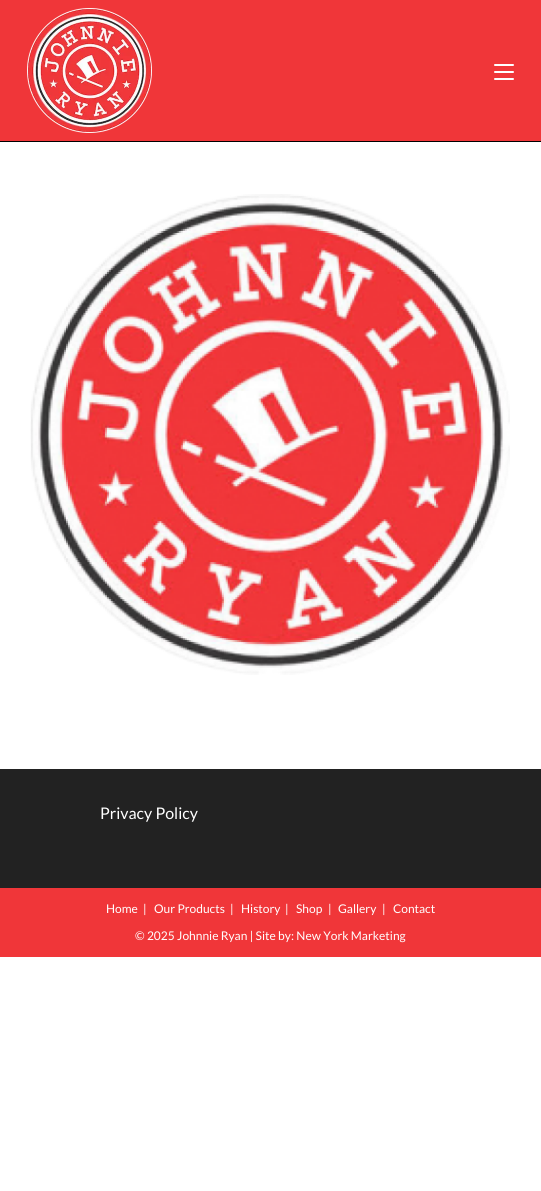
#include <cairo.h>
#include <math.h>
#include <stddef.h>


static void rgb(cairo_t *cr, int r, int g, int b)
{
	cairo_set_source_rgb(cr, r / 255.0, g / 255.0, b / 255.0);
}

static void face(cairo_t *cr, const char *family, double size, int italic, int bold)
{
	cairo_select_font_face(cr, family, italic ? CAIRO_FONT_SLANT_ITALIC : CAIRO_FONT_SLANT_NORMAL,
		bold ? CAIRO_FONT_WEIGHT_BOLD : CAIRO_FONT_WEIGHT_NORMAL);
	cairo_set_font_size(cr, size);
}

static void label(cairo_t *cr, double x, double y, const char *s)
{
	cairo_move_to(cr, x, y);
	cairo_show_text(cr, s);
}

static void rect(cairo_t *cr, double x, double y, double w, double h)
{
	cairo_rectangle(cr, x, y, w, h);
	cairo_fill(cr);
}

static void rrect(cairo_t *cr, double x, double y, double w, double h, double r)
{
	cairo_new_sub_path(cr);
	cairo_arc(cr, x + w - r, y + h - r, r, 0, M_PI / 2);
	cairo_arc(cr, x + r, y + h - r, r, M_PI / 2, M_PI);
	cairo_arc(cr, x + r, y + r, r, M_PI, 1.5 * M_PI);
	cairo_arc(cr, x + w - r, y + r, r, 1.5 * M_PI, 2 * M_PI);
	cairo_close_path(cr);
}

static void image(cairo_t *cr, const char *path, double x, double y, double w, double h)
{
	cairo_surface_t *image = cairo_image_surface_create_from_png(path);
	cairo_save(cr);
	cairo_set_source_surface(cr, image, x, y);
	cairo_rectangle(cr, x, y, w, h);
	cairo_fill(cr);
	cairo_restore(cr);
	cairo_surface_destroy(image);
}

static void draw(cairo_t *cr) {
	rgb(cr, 255, 255, 255);
	cairo_paint(cr);
	rgb(cr, 240, 54, 57);
	rect(cr, 0, 0, 541, 141);
	rgb(cr, 0, 0, 0);
	rect(cr, 0, 141, 541, 1);
	image(cr, "image0.png", 27, 8, 125, 125);
	rgb(cr, 255, 255, 255);
	rrect(cr, 494, 78, 20, 2, 1);
	cairo_fill(cr);
	rrect(cr, 494, 64, 20, 2, 1);
	cairo_fill(cr);
	rrect(cr, 494, 71, 20, 2, 1);
	cairo_fill(cr);
	image(cr, "image1.png", 30, 194, 480, 481);
	rgb(cr, 34, 34, 34);
	rect(cr, 0, 769, 541, 119);
	face(cr, "Lato", 16, 0, 0);
	rgb(cr, 255, 255, 255);
	label(cr, 100, 819, "Privacy Policy");
	rgb(cr, 240, 54, 57);
	rect(cr, 0, 888, 541, 69);
	face(cr, "Lato", 12, 0, 0);
	rgb(cr, 255, 255, 255);
	label(cr, 106, 913, "Home");
	label(cr, 143, 913, "|");
	label(cr, 154, 913, "Our Products");
	label(cr, 230, 913, "|");
	label(cr, 241, 913, "History");
	label(cr, 285, 913, "|");
	label(cr, 296, 913, "Shop");
	label(cr, 328, 913, "|");
	label(cr, 338, 913, "Gallery");
	label(cr, 382, 913, "|");
	label(cr, 393, 913, "Contact");
	label(cr, 135, 940, "© 2025 Johnnie Ryan | Site by: New York Marketing");
}

int main(void) {
	cairo_surface_t *surface = cairo_image_surface_create(CAIRO_FORMAT_RGB24, 541, 1191);
	cairo_t *cr = cairo_create(surface);
	cairo_font_options_t *options = cairo_font_options_create();
	cairo_font_options_set_hint_metrics(options, CAIRO_HINT_METRICS_OFF);
	cairo_font_options_set_hint_style(options, CAIRO_HINT_STYLE_NONE);
	cairo_set_font_options(cr, options);
	cairo_set_miter_limit(cr, 4);
	draw(cr);
	cairo_surface_write_to_png(surface, "render.png");
	cairo_font_options_destroy(options);
	cairo_destroy(cr);
	cairo_surface_destroy(surface);
	return 0;
}
